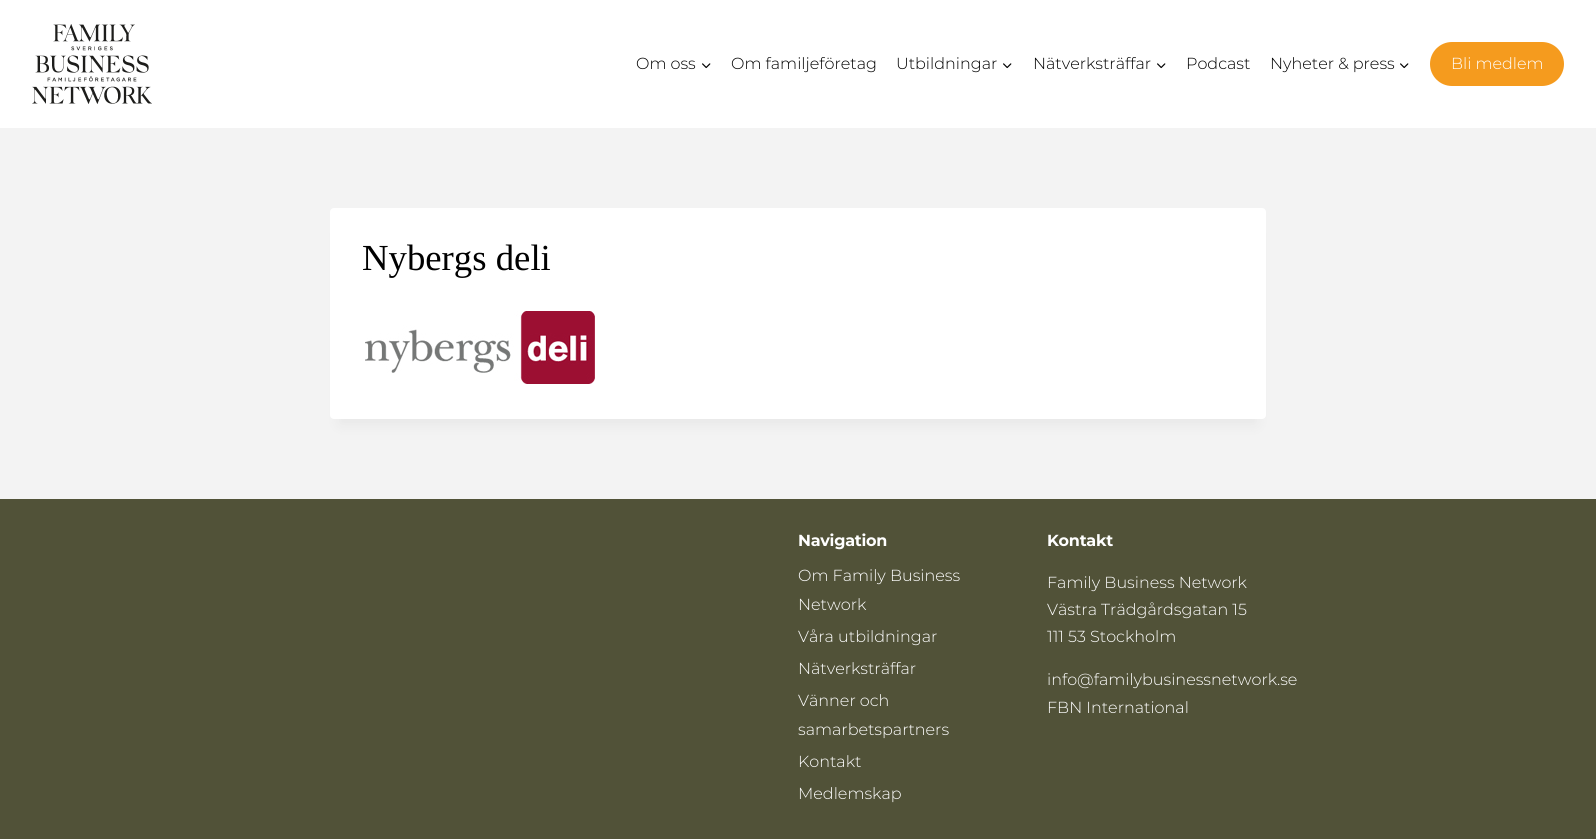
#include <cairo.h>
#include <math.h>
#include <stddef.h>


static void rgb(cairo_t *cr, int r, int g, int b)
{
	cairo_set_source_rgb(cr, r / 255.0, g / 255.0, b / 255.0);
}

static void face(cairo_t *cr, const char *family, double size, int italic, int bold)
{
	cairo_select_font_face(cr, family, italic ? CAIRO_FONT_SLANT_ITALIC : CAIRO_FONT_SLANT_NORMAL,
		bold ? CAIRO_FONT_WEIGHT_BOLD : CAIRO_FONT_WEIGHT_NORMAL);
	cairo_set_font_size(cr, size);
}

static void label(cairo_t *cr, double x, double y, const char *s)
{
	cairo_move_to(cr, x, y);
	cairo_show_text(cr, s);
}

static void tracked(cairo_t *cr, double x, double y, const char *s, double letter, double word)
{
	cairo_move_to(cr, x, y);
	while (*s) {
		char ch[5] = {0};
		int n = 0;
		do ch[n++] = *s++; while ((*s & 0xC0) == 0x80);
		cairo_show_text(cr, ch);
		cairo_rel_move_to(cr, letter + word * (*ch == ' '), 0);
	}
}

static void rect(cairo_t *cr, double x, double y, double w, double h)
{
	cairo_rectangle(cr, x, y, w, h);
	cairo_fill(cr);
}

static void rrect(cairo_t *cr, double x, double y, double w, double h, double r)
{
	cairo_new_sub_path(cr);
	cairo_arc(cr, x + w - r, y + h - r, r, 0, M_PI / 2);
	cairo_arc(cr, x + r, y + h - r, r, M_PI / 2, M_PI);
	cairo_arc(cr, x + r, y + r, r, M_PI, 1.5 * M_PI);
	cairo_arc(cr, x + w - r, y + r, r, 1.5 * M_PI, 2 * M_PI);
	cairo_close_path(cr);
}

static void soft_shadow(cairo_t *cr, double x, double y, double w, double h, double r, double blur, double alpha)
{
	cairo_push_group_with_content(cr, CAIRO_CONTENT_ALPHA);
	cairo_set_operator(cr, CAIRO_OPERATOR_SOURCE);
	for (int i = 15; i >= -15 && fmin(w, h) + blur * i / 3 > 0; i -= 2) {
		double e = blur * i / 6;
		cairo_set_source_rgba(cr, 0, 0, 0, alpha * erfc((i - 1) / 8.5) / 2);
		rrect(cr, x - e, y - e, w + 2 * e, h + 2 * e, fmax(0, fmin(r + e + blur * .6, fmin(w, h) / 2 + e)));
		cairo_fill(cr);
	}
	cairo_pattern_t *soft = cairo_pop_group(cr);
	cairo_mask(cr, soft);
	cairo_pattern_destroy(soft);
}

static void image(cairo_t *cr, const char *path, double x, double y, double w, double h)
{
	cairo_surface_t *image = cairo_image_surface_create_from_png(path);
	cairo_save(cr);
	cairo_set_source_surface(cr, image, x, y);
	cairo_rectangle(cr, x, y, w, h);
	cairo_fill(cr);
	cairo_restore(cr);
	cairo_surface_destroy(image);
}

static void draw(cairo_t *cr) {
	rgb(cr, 243, 243, 243);
	cairo_paint(cr);
	rgb(cr, 255, 255, 255);
	rect(cr, 0, 0, 1596, 128);
	image(cr, "image0.png", 32, 24, 120, 80);
	face(cr, "Montserrat Light", 16, 0, 0);
	rgb(cr, 0, 0, 0);
	label(cr, 636, 69, "Om oss");
	image(cr, "image1.png", 702, 63, 9, 6);
	label(cr, 731, 69, "Om familjeföretag");
	label(cr, 896, 69, "Utbildningar");
	image(cr, "image1.png", 1003, 63, 9, 6);
	label(cr, 1033, 69, "Nätverksträffar");
	image(cr, "image1.png", 1157, 63, 9, 6);
	label(cr, 1186, 69, "Podcast");
	label(cr, 1270, 69, "Nyheter & press");
	image(cr, "image1.png", 1400, 63, 9, 6);
	rgb(cr, 245, 155, 30);
	rrect(cr, 1430, 42, 134, 44, 22);
	cairo_fill(cr);
	rgb(cr, 255, 255, 255);
	label(cr, 1451, 69, "Bli medlem");
	rgb(cr, 0, 0, 0);
	soft_shadow(cr, 340, 233, 916, 191, 0, 7.5, 0.05);
	rgb(cr, 255, 255, 255);
	rrect(cr, 330, 208, 936, 211, 4);
	cairo_fill(cr);
	face(cr, "Liberation Serif", 36.75, 0, 0);
	rgb(cr, 0, 0, 0);
	label(cr, 362, 270, "Nybergs deli");
	image(cr, "image2.png", 365, 311, 230, 73);
	rgb(cr, 81, 82, 56);
	rect(cr, 0, 499, 1596, 340);
	face(cr, "Montserrat", 16, 0, 1);
	rgb(cr, 255, 255, 255);
	tracked(cr, 798, 546, "Navigation", -0.25, 0);
	face(cr, "Montserrat Light", 16, 0, 0);
	label(cr, 798, 581, "Om Family Business");
	label(cr, 798, 610, "Network");
	label(cr, 798, 642, "Våra utbildningar");
	label(cr, 798, 674, "Nätverksträffar");
	label(cr, 798, 706, "Vänner och");
	label(cr, 798, 735, "samarbetspartners");
	label(cr, 798, 767, "Kontakt");
	label(cr, 798, 799, "Medlemskap");
	face(cr, "Montserrat", 16, 0, 1);
	tracked(cr, 1047, 546, "Kontakt", -0.25, 0);
	face(cr, "Montserrat Light", 16, 0, 0);
	label(cr, 1047, 588, "Family Business Network");
	label(cr, 1047, 615, "Västra Trädgårdsgatan 15");
	label(cr, 1047, 642, "111 53 Stockholm");
	label(cr, 1047, 685, "info@familybusinessnetwork.se");
	label(cr, 1047, 713, "FBN International");
}

int main(void) {
	cairo_surface_t *surface = cairo_image_surface_create(CAIRO_FORMAT_RGB24, 1596, 839);
	cairo_t *cr = cairo_create(surface);
	cairo_font_options_t *options = cairo_font_options_create();
	cairo_font_options_set_hint_metrics(options, CAIRO_HINT_METRICS_OFF);
	cairo_font_options_set_hint_style(options, CAIRO_HINT_STYLE_NONE);
	cairo_set_font_options(cr, options);
	cairo_set_miter_limit(cr, 4);
	draw(cr);
	cairo_surface_write_to_png(surface, "render.png");
	cairo_font_options_destroy(options);
	cairo_destroy(cr);
	cairo_surface_destroy(surface);
	return 0;
}
